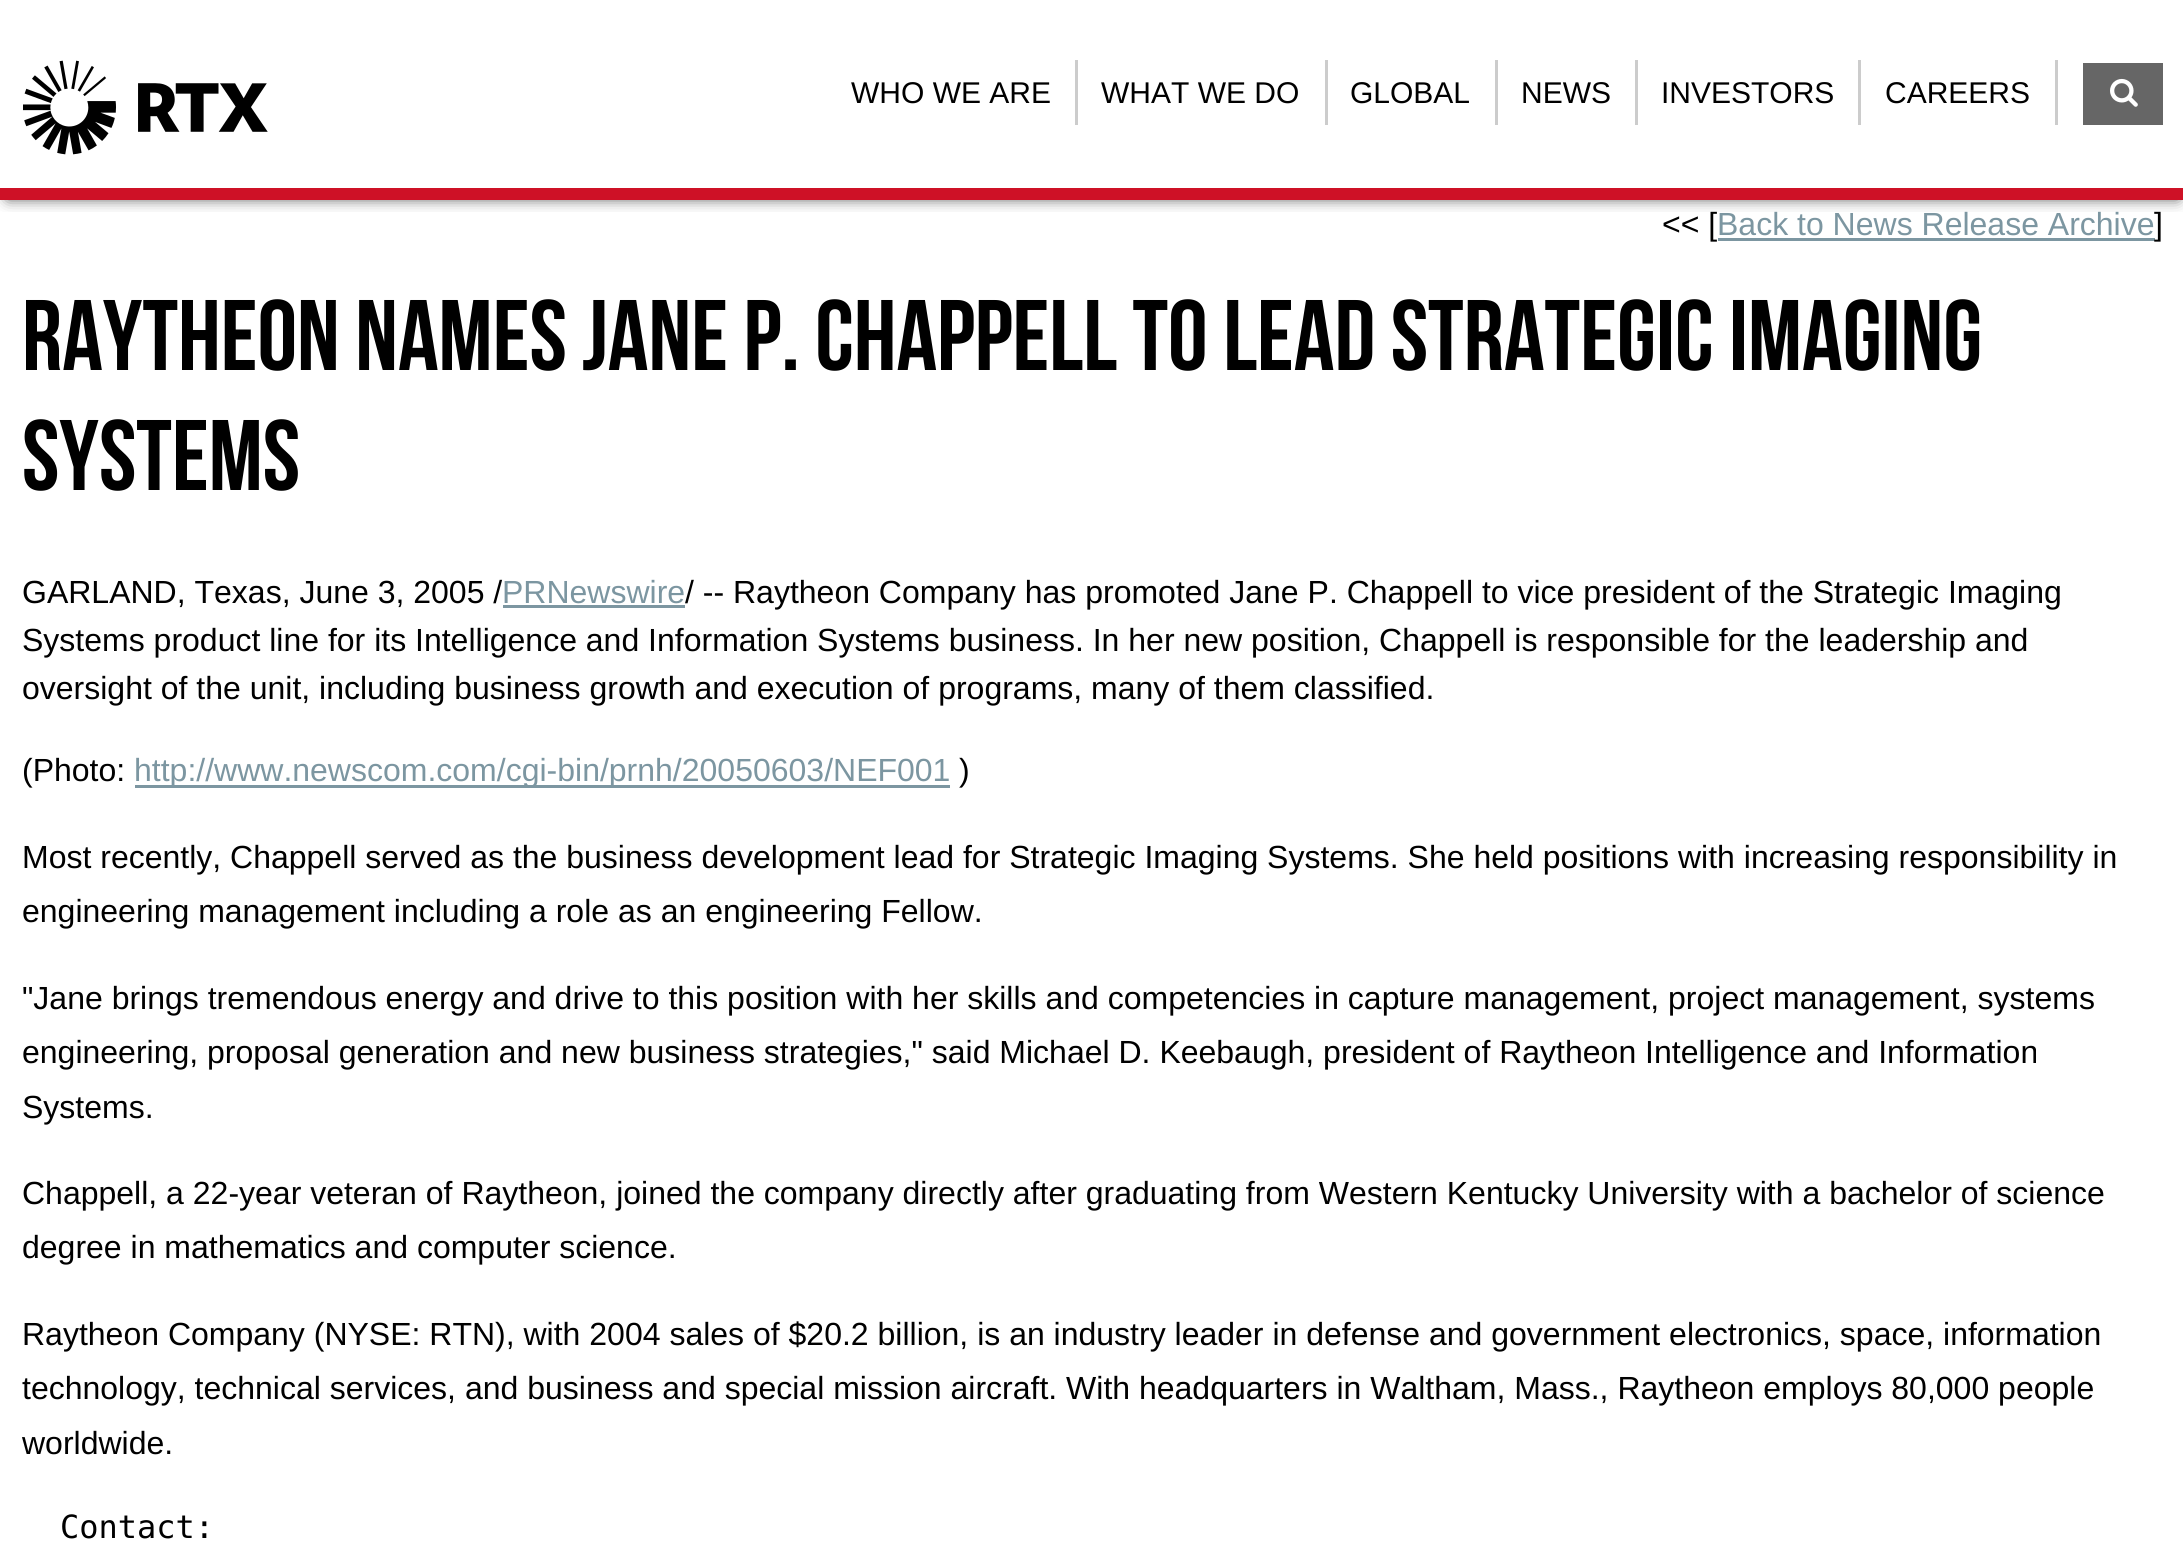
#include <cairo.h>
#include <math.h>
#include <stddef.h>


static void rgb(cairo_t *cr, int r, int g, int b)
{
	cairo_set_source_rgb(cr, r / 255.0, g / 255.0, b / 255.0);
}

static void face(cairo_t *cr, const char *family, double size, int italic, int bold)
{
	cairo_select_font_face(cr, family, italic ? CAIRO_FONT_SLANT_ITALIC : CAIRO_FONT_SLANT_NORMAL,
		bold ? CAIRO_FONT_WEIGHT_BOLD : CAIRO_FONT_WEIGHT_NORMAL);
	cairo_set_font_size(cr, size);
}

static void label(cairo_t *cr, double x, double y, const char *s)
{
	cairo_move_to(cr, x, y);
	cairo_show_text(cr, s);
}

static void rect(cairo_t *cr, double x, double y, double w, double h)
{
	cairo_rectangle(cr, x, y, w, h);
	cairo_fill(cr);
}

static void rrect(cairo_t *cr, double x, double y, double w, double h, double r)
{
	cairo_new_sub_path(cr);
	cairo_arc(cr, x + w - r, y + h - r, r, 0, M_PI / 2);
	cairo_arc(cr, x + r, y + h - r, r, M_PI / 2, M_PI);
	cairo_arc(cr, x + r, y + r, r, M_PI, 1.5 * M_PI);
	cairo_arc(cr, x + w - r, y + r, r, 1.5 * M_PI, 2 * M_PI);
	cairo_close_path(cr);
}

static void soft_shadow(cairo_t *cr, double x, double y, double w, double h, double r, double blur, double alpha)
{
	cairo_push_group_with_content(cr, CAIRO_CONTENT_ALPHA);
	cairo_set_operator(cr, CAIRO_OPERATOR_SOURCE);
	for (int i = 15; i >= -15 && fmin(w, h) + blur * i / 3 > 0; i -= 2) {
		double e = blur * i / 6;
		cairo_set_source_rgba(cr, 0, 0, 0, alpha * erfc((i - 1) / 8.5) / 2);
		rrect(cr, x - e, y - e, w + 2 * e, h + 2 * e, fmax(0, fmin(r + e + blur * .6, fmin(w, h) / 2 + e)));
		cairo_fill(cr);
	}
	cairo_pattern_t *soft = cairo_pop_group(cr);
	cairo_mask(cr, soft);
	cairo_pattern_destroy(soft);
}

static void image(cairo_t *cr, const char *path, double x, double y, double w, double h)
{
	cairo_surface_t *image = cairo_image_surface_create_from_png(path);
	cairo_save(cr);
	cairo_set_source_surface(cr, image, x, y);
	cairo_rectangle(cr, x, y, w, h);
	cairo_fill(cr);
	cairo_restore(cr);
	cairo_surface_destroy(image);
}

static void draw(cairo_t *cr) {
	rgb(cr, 255, 255, 255);
	cairo_paint(cr);
	cairo_save(cr);
	cairo_rectangle(cr, 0, 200, 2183, 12);
	cairo_clip(cr);
	rgb(cr, 0, 0, 0);
	soft_shadow(cr, 8, 13, 2170, 185, 0, 7.5, 0.75);
	cairo_restore(cr);
	rgb(cr, 206, 17, 38);
	rect(cr, 0, 188, 2183, 12);
	image(cr, "image0.png", 23, 60, 245, 95);
	face(cr, "Liberation Sans", 30, 0, 0);
	rgb(cr, 0, 0, 0);
	label(cr, 851, 103, "WHO WE ARE");
	rgb(cr, 204, 204, 204);
	rect(cr, 1075, 60, 3, 65);
	rgb(cr, 0, 0, 0);
	label(cr, 1101, 103, "WHAT WE DO");
	rgb(cr, 204, 204, 204);
	rect(cr, 1325, 60, 3, 65);
	rgb(cr, 0, 0, 0);
	label(cr, 1350, 103, "GLOBAL");
	rgb(cr, 204, 204, 204);
	rect(cr, 1495, 60, 3, 65);
	rgb(cr, 0, 0, 0);
	label(cr, 1521, 103, "NEWS");
	rgb(cr, 204, 204, 204);
	rect(cr, 1635, 60, 3, 65);
	rgb(cr, 0, 0, 0);
	label(cr, 1661, 103, "INVESTORS");
	rgb(cr, 204, 204, 204);
	rect(cr, 1858, 60, 3, 65);
	rgb(cr, 0, 0, 0);
	label(cr, 1885, 103, "CAREERS");
	rgb(cr, 204, 204, 204);
	rect(cr, 2055, 60, 3, 65);
	rgb(cr, 102, 102, 102);
	rect(cr, 2083, 63, 80, 62);
	image(cr, "image1.png", 2110, 78, 28, 29);
	face(cr, "Liberation Sans", 32, 0, 0);
	rgb(cr, 0, 0, 0);
	label(cr, 1662, 235, "<< [");
	rgb(cr, 124, 150, 161);
	label(cr, 1717, 235, "Back to News Release Archive");
	rect(cr, 1718, 238, 437, 3);
	rgb(cr, 0, 0, 0);
	label(cr, 2154, 235, "]");
	face(cr, "Bebas Neue", 100, 0, 0);
	label(cr, 22, 370, "Raytheon Names Jane P. Chappell to Lead Strategic Imaging");
	label(cr, 22, 490, "Systems");
	face(cr, "Liberation Sans", 32, 0, 0);
	label(cr, 22, 603, "GARLAND, Texas, June 3, 2005 /");
	rgb(cr, 124, 150, 161);
	label(cr, 502, 603, "PRNewswire");
	rect(cr, 503, 605, 182, 3);
	rgb(cr, 0, 0, 0);
	label(cr, 685, 603, "/ -- Raytheon Company has promoted Jane P. Chappell to vice president of the Strategic Imaging");
	label(cr, 22, 651, "Systems product line for its Intelligence and Information Systems business. In her new position, Chappell is responsible for the leadership and");
	label(cr, 22, 699, "oversight of the unit, including business growth and execution of programs, many of them classified.");
	label(cr, 22, 781, "(Photo:");
	rgb(cr, 124, 150, 161);
	rect(cr, 135, 785, 815, 3);
	label(cr, 134, 781, "http://www.newscom.com/cgi-bin/prnh/20050603/NEF001");
	rgb(cr, 0, 0, 0);
	label(cr, 959, 781, ")");
	label(cr, 22, 868, "Most recently, Chappell served as the business development lead for Strategic Imaging Systems. She held positions with increasing responsibility in");
	label(cr, 22, 922, "engineering management including a role as an engineering Fellow.");
	label(cr, 22, 1009, "\"Jane brings tremendous energy and drive to this position with her skills and competencies in capture management, project management, systems");
	label(cr, 22, 1063, "engineering, proposal generation and new business strategies,\" said Michael D. Keebaugh, president of Raytheon Intelligence and Information");
	label(cr, 22, 1118, "Systems.");
	label(cr, 22, 1204, "Chappell, a 22-year veteran of Raytheon, joined the company directly after graduating from Western Kentucky University with a bachelor of science");
	label(cr, 22, 1258, "degree in mathematics and computer science.");
	label(cr, 22, 1345, "Raytheon Company (NYSE: RTN), with 2004 sales of $20.2 billion, is an industry leader in defense and government electronics, space, information");
	label(cr, 22, 1399, "technology, technical services, and business and special mission aircraft. With headquarters in Waltham, Mass., Raytheon employs 80,000 people");
	label(cr, 22, 1454, "worldwide.");
	face(cr, "DejaVu Sans Mono", 32, 0, 0);
	label(cr, 60, 1538, "Contact:");
}

int main(void) {
	cairo_surface_t *surface = cairo_image_surface_create(CAIRO_FORMAT_RGB24, 2183, 1549);
	cairo_t *cr = cairo_create(surface);
	cairo_font_options_t *options = cairo_font_options_create();
	cairo_font_options_set_hint_metrics(options, CAIRO_HINT_METRICS_OFF);
	cairo_font_options_set_hint_style(options, CAIRO_HINT_STYLE_NONE);
	cairo_set_font_options(cr, options);
	cairo_set_miter_limit(cr, 4);
	draw(cr);
	cairo_surface_write_to_png(surface, "render.png");
	cairo_font_options_destroy(options);
	cairo_destroy(cr);
	cairo_surface_destroy(surface);
	return 0;
}
